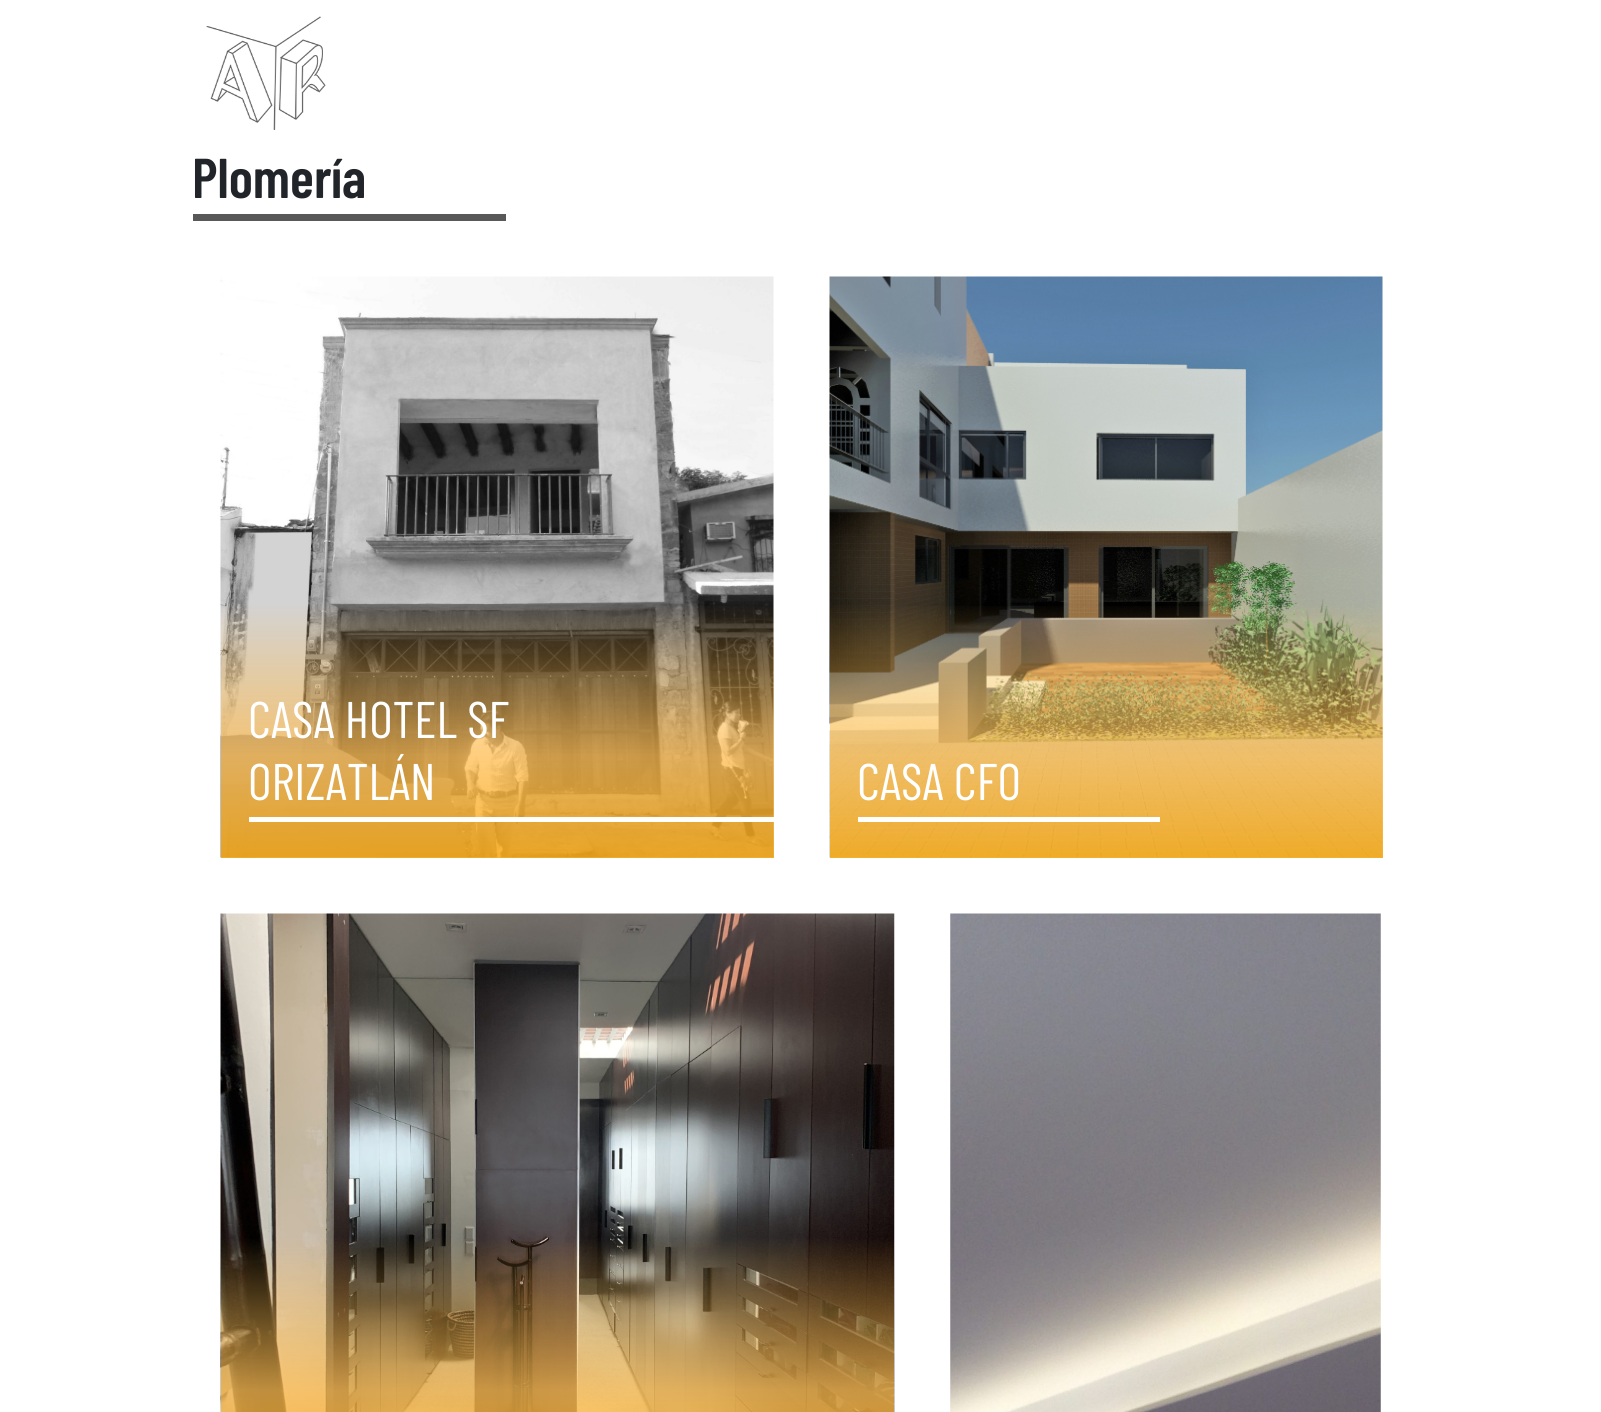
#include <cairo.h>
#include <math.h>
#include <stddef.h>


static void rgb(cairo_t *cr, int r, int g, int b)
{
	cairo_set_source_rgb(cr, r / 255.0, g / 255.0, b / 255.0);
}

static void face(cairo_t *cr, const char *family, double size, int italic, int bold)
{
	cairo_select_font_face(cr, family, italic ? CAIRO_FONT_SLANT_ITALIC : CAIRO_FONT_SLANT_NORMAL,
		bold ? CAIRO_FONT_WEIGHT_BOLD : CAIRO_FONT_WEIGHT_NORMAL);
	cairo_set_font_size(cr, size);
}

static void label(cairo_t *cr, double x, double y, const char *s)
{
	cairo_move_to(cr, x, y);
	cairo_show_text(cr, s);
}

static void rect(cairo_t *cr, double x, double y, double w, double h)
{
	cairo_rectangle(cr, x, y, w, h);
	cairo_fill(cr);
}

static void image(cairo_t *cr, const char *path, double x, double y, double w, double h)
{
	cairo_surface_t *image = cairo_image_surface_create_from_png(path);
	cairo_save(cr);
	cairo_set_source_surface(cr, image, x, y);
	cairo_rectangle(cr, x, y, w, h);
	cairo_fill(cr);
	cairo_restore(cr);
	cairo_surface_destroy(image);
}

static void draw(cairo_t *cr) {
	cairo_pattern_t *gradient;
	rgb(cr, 255, 255, 255);
	cairo_paint(cr);
	image(cr, "image0.png", 206, 16, 120, 114);
	rgb(cr, 88, 88, 88);
	rect(cr, 193, 214, 313, 7);
	face(cr, "Barlow Condensed SemiBold", 56, 0, 0);
	rgb(cr, 33, 37, 41);
	label(cr, 192, 198, "Plomería");
	image(cr, "image1.png", 220, 276, 554, 582);
	gradient = cairo_pattern_create_linear(497, 858, 497, 602);
	cairo_pattern_add_color_stop_rgba(gradient, 0, 0.969, 0.655, 0.063, 0.85);
	cairo_pattern_add_color_stop_rgba(gradient, 0.4, 1, 0.741, 0.322, 0.75);
	cairo_pattern_add_color_stop_rgba(gradient, 1, 1, 0.741, 0.322, 0);
	cairo_set_source(cr, gradient);
	cairo_pattern_destroy(gradient);
	rect(cr, 221, 606, 553, 252);
	rgb(cr, 255, 255, 255);
	rect(cr, 249, 817, 525, 5);
	face(cr, "Barlow Condensed", 51.5, 0, 0);
	label(cr, 248, 738, "CASA HOTEL SF");
	label(cr, 248, 800, "ORIZATLÁN");
	image(cr, "image2.png", 829, 276, 554, 582);
	gradient = cairo_pattern_create_linear(1106, 858, 1106, 602);
	cairo_pattern_add_color_stop_rgba(gradient, 0, 0.969, 0.655, 0.063, 0.85);
	cairo_pattern_add_color_stop_rgba(gradient, 0.4, 1, 0.741, 0.322, 0.75);
	cairo_pattern_add_color_stop_rgba(gradient, 1, 1, 0.741, 0.322, 0);
	cairo_set_source(cr, gradient);
	cairo_pattern_destroy(gradient);
	rect(cr, 830, 606, 553, 252);
	rgb(cr, 255, 255, 255);
	rect(cr, 858, 817, 302, 5);
	label(cr, 857, 800, "CASA CFO");
	image(cr, "image3.png", 220, 913, 675, 499);
	image(cr, "image4.png", 950, 913, 431, 499);
}

int main(void) {
	cairo_surface_t *surface = cairo_image_surface_create(CAIRO_FORMAT_RGB24, 1601, 1412);
	cairo_t *cr = cairo_create(surface);
	cairo_font_options_t *options = cairo_font_options_create();
	cairo_font_options_set_hint_metrics(options, CAIRO_HINT_METRICS_OFF);
	cairo_font_options_set_hint_style(options, CAIRO_HINT_STYLE_NONE);
	cairo_set_font_options(cr, options);
	cairo_set_miter_limit(cr, 4);
	draw(cr);
	cairo_surface_write_to_png(surface, "render.png");
	cairo_font_options_destroy(options);
	cairo_destroy(cr);
	cairo_surface_destroy(surface);
	return 0;
}
